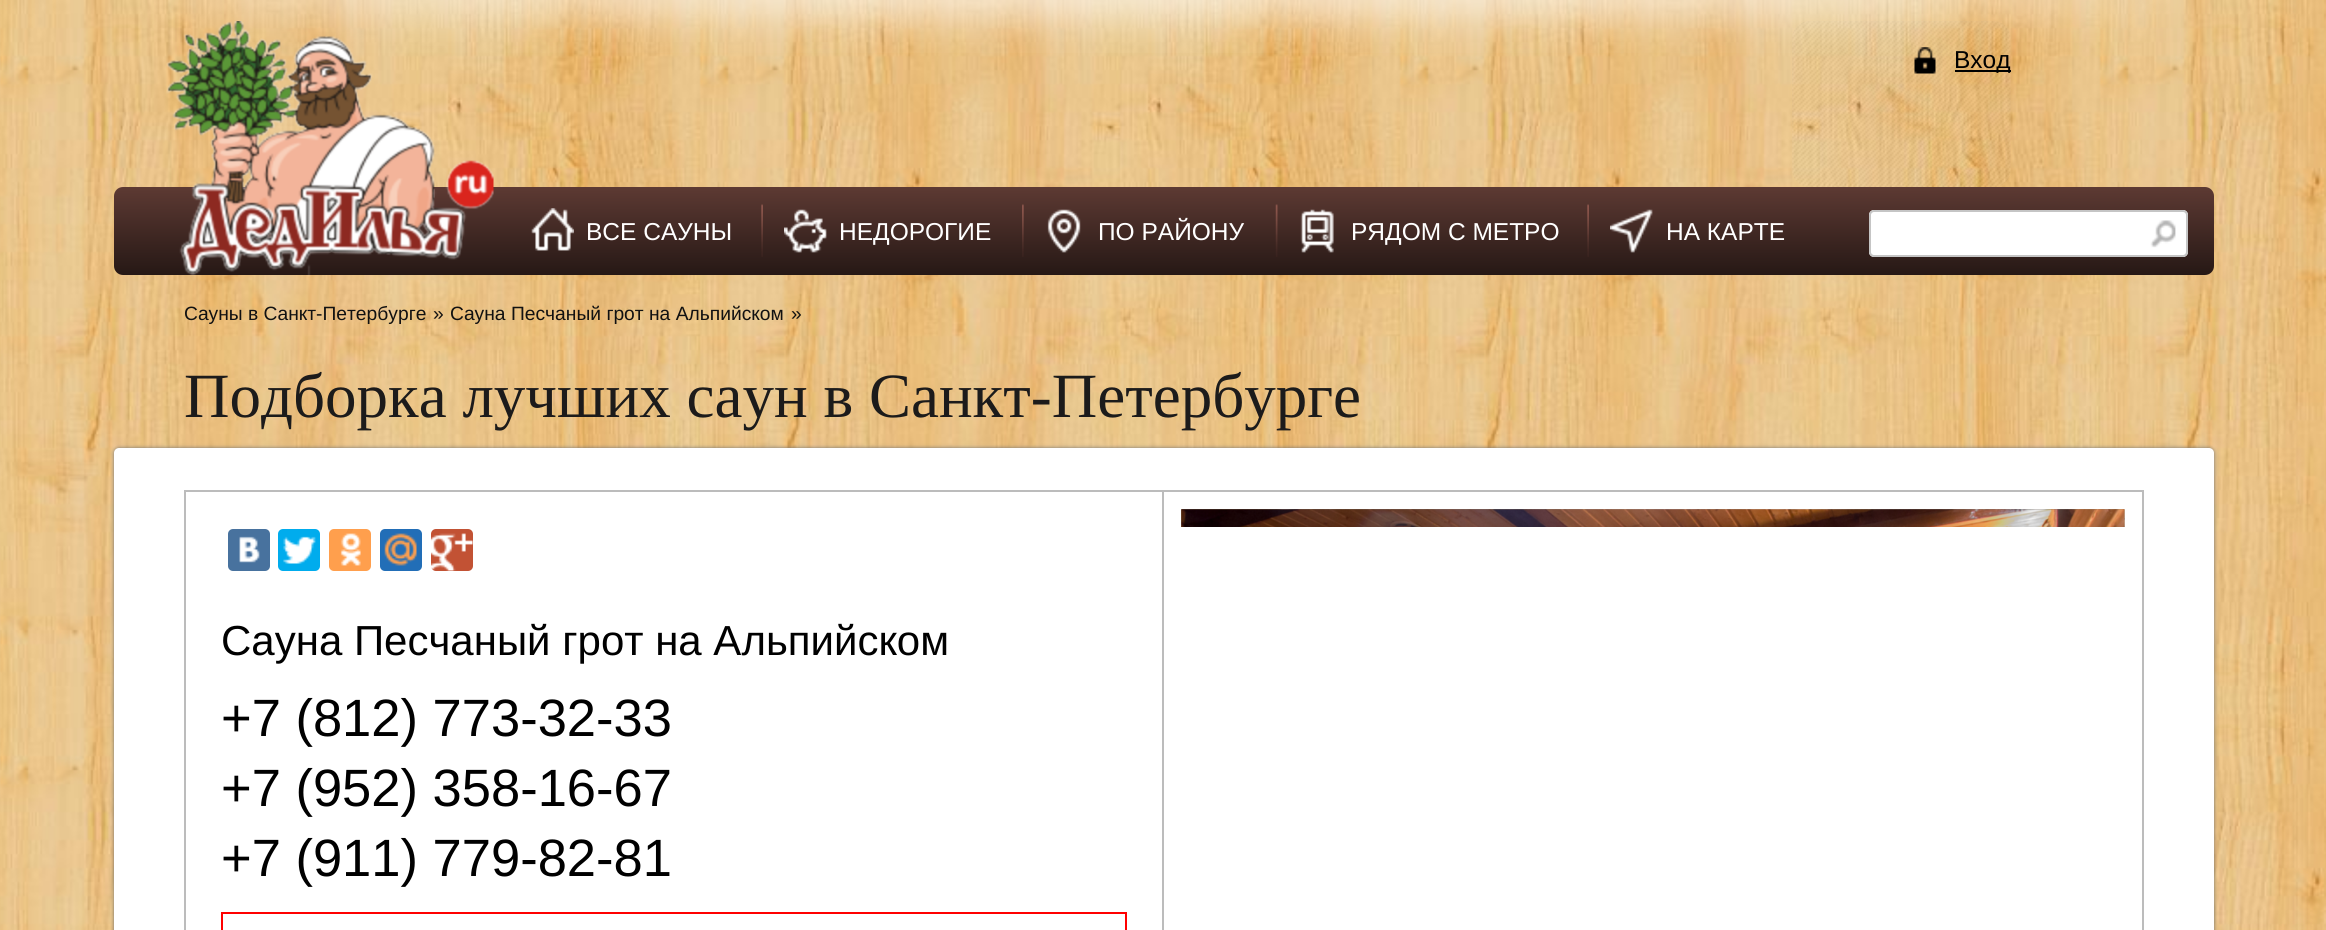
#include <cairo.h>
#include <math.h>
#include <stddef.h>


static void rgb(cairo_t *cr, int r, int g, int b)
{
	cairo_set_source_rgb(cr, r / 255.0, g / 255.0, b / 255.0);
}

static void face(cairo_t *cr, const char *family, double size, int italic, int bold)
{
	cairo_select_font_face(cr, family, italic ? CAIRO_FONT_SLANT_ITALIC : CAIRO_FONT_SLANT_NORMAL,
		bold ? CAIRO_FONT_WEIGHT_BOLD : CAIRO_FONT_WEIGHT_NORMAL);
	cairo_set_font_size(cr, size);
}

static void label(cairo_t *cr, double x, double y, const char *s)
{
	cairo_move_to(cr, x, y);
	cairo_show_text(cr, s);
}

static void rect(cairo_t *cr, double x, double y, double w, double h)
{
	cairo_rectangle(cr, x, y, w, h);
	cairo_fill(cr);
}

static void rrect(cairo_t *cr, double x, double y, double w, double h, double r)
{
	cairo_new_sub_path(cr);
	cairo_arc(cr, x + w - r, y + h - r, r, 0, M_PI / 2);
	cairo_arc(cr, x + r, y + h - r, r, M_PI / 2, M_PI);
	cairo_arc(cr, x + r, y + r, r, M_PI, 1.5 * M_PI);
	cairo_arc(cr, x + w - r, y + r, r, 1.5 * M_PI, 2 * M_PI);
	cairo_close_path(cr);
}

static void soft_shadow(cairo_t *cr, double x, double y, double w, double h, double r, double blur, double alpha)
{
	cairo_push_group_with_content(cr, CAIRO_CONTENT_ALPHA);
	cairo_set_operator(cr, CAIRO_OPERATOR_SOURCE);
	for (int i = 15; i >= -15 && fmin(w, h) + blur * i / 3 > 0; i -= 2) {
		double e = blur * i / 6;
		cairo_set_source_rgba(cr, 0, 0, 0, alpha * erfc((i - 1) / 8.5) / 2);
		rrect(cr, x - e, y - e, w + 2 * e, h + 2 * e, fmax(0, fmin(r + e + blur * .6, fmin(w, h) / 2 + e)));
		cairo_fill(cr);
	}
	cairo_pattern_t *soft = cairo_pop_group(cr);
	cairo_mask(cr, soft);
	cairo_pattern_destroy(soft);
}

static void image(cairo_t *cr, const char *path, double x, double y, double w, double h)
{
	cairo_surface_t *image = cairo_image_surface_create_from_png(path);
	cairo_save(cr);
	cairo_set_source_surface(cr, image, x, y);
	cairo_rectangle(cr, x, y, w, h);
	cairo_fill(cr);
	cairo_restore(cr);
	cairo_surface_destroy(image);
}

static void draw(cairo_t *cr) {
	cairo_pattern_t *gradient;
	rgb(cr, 255, 255, 255);
	cairo_paint(cr);
	image(cr, "image0.png", 0, 0, 2326, 930);
	image(cr, "image3.png", 1792, 21, 219, 166);
	image(cr, "image4.png", 1914, 47, 22, 27);
	rgb(cr, 0, 0, 0);
	rect(cr, 1955, 70, 56, 2);
	face(cr, "Liberation Sans", 24.5, 0, 0);
	label(cr, 1954, 68, "Вход");
	image(cr, "image1.png", 140, 0, 2048, 53);
	gradient = cairo_pattern_create_linear(1164, 187, 1164, 275);
	cairo_pattern_add_color_stop_rgba(gradient, 0, 0.365, 0.227, 0.2, 1);
	cairo_pattern_add_color_stop_rgba(gradient, 1, 0.149, 0.094, 0.082, 1);
	cairo_set_source(cr, gradient);
	cairo_pattern_destroy(gradient);
	rrect(cr, 114, 187, 2100, 88, 9);
	cairo_fill(cr);
	image(cr, "image2.png", 166, 21, 328, 256);
	image(cr, "image5.png", 761, 204, 2, 53);
	image(cr, "image6.png", 531, 208, 43, 43);
	rgb(cr, 255, 255, 255);
	label(cr, 586, 240, "ВСЕ САУНЫ");
	image(cr, "image7.png", 1022, 204, 2, 53);
	image(cr, "image8.png", 784, 209, 43, 44);
	label(cr, 839, 240, "НЕДОРОГИЕ");
	image(cr, "image9.png", 1275, 204, 3, 53);
	image(cr, "image10.png", 1047, 209, 34, 44);
	label(cr, 1098, 240, "ПО РАЙОНУ");
	image(cr, "image5.png", 1587, 204, 2, 53);
	image(cr, "image11.png", 1300, 209, 34, 44);
	label(cr, 1351, 240, "РЯДОМ С МЕТРО");
	image(cr, "image12.png", 1610, 209, 43, 44);
	label(cr, 1666, 240, "НА КАРТЕ");
	rrect(cr, 1869, 210, 319, 47, 5);
	cairo_fill(cr);
	image(cr, "image13.png", 2150, 220, 26, 28);
	rrect(cr, 1870, 211, 317, 45, 4);
	rgb(cr, 197, 197, 197);
	cairo_stroke(cr);
	face(cr, "Liberation Sans", 19.25, 0, 0);
	rgb(cr, 17, 17, 17);
	label(cr, 184, 320, "Сауны в Санкт-Петербурге");
	label(cr, 433, 320, "»");
	label(cr, 450, 320, "Сауна Песчаный грот на Альпийском");
	label(cr, 791, 320, "»");
	face(cr, "Liberation Serif", 63, 0, 0);
	rgb(cr, 28, 27, 27);
	label(cr, 184, 417, "Подборка лучших саун в Санкт-Петербурге");
	rgb(cr, 119, 119, 119);
	soft_shadow(cr, 114, 448, 2100, 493, 5, 2, 1);
	rgb(cr, 255, 255, 255);
	rrect(cr, 114, 448, 2100, 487, 5);
	cairo_fill(cr);
	rgb(cr, 188, 188, 188);
	rect(cr, 184, 490, 1960, 2);
	rect(cr, 2142, 490, 2, 440);
	rect(cr, 184, 490, 2, 440);
	image(cr, "image14.png", 1181, 509, 944, 18);
	image(cr, "image15.png", 1181, 509, 944, 18);
	rect(cr, 1162, 492, 2, 438);
	rgb(cr, 72, 114, 158);
	rrect(cr, 228, 529, 42, 42, 5);
	cairo_fill(cr);
	image(cr, "image16.png", 239, 536, 21, 27);
	rgb(cr, 0, 172, 237);
	rrect(cr, 278, 529, 42, 42, 5);
	cairo_fill(cr);
	image(cr, "image17.png", 283, 536, 33, 28);
	rgb(cr, 255, 159, 77);
	rrect(cr, 329, 529, 42, 42, 5);
	cairo_fill(cr);
	image(cr, "image18.png", 340, 533, 21, 33);
	rgb(cr, 34, 110, 183);
	rrect(cr, 380, 529, 42, 42, 5);
	cairo_fill(cr);
	image(cr, "image19.png", 384, 533, 33, 33);
	rgb(cr, 194, 82, 52);
	rrect(cr, 431, 529, 42, 42, 5);
	cairo_fill(cr);
	image(cr, "image20.png", 431, 533, 42, 38);
	face(cr, "Liberation Sans", 42, 0, 0);
	rgb(cr, 0, 0, 0);
	label(cr, 221, 655, "Сауна Песчаный грот на Альпийском");
	face(cr, "Liberation Sans", 52.5, 0, 0);
	label(cr, 221, 736, "+7 (812) 773-32-33");
	label(cr, 221, 806, "+7 (952) 358-16-67");
	label(cr, 221, 876, "+7 (911) 779-82-81");
	cairo_rectangle(cr, 222, 913, 904, 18);
	rgb(cr, 255, 0, 0);
	cairo_stroke(cr);
}

int main(void) {
	cairo_surface_t *surface = cairo_image_surface_create(CAIRO_FORMAT_RGB24, 2326, 930);
	cairo_t *cr = cairo_create(surface);
	cairo_font_options_t *options = cairo_font_options_create();
	cairo_font_options_set_hint_metrics(options, CAIRO_HINT_METRICS_OFF);
	cairo_font_options_set_hint_style(options, CAIRO_HINT_STYLE_NONE);
	cairo_set_font_options(cr, options);
	cairo_set_miter_limit(cr, 4);
	draw(cr);
	cairo_surface_write_to_png(surface, "render.png");
	cairo_font_options_destroy(options);
	cairo_destroy(cr);
	cairo_surface_destroy(surface);
	return 0;
}
